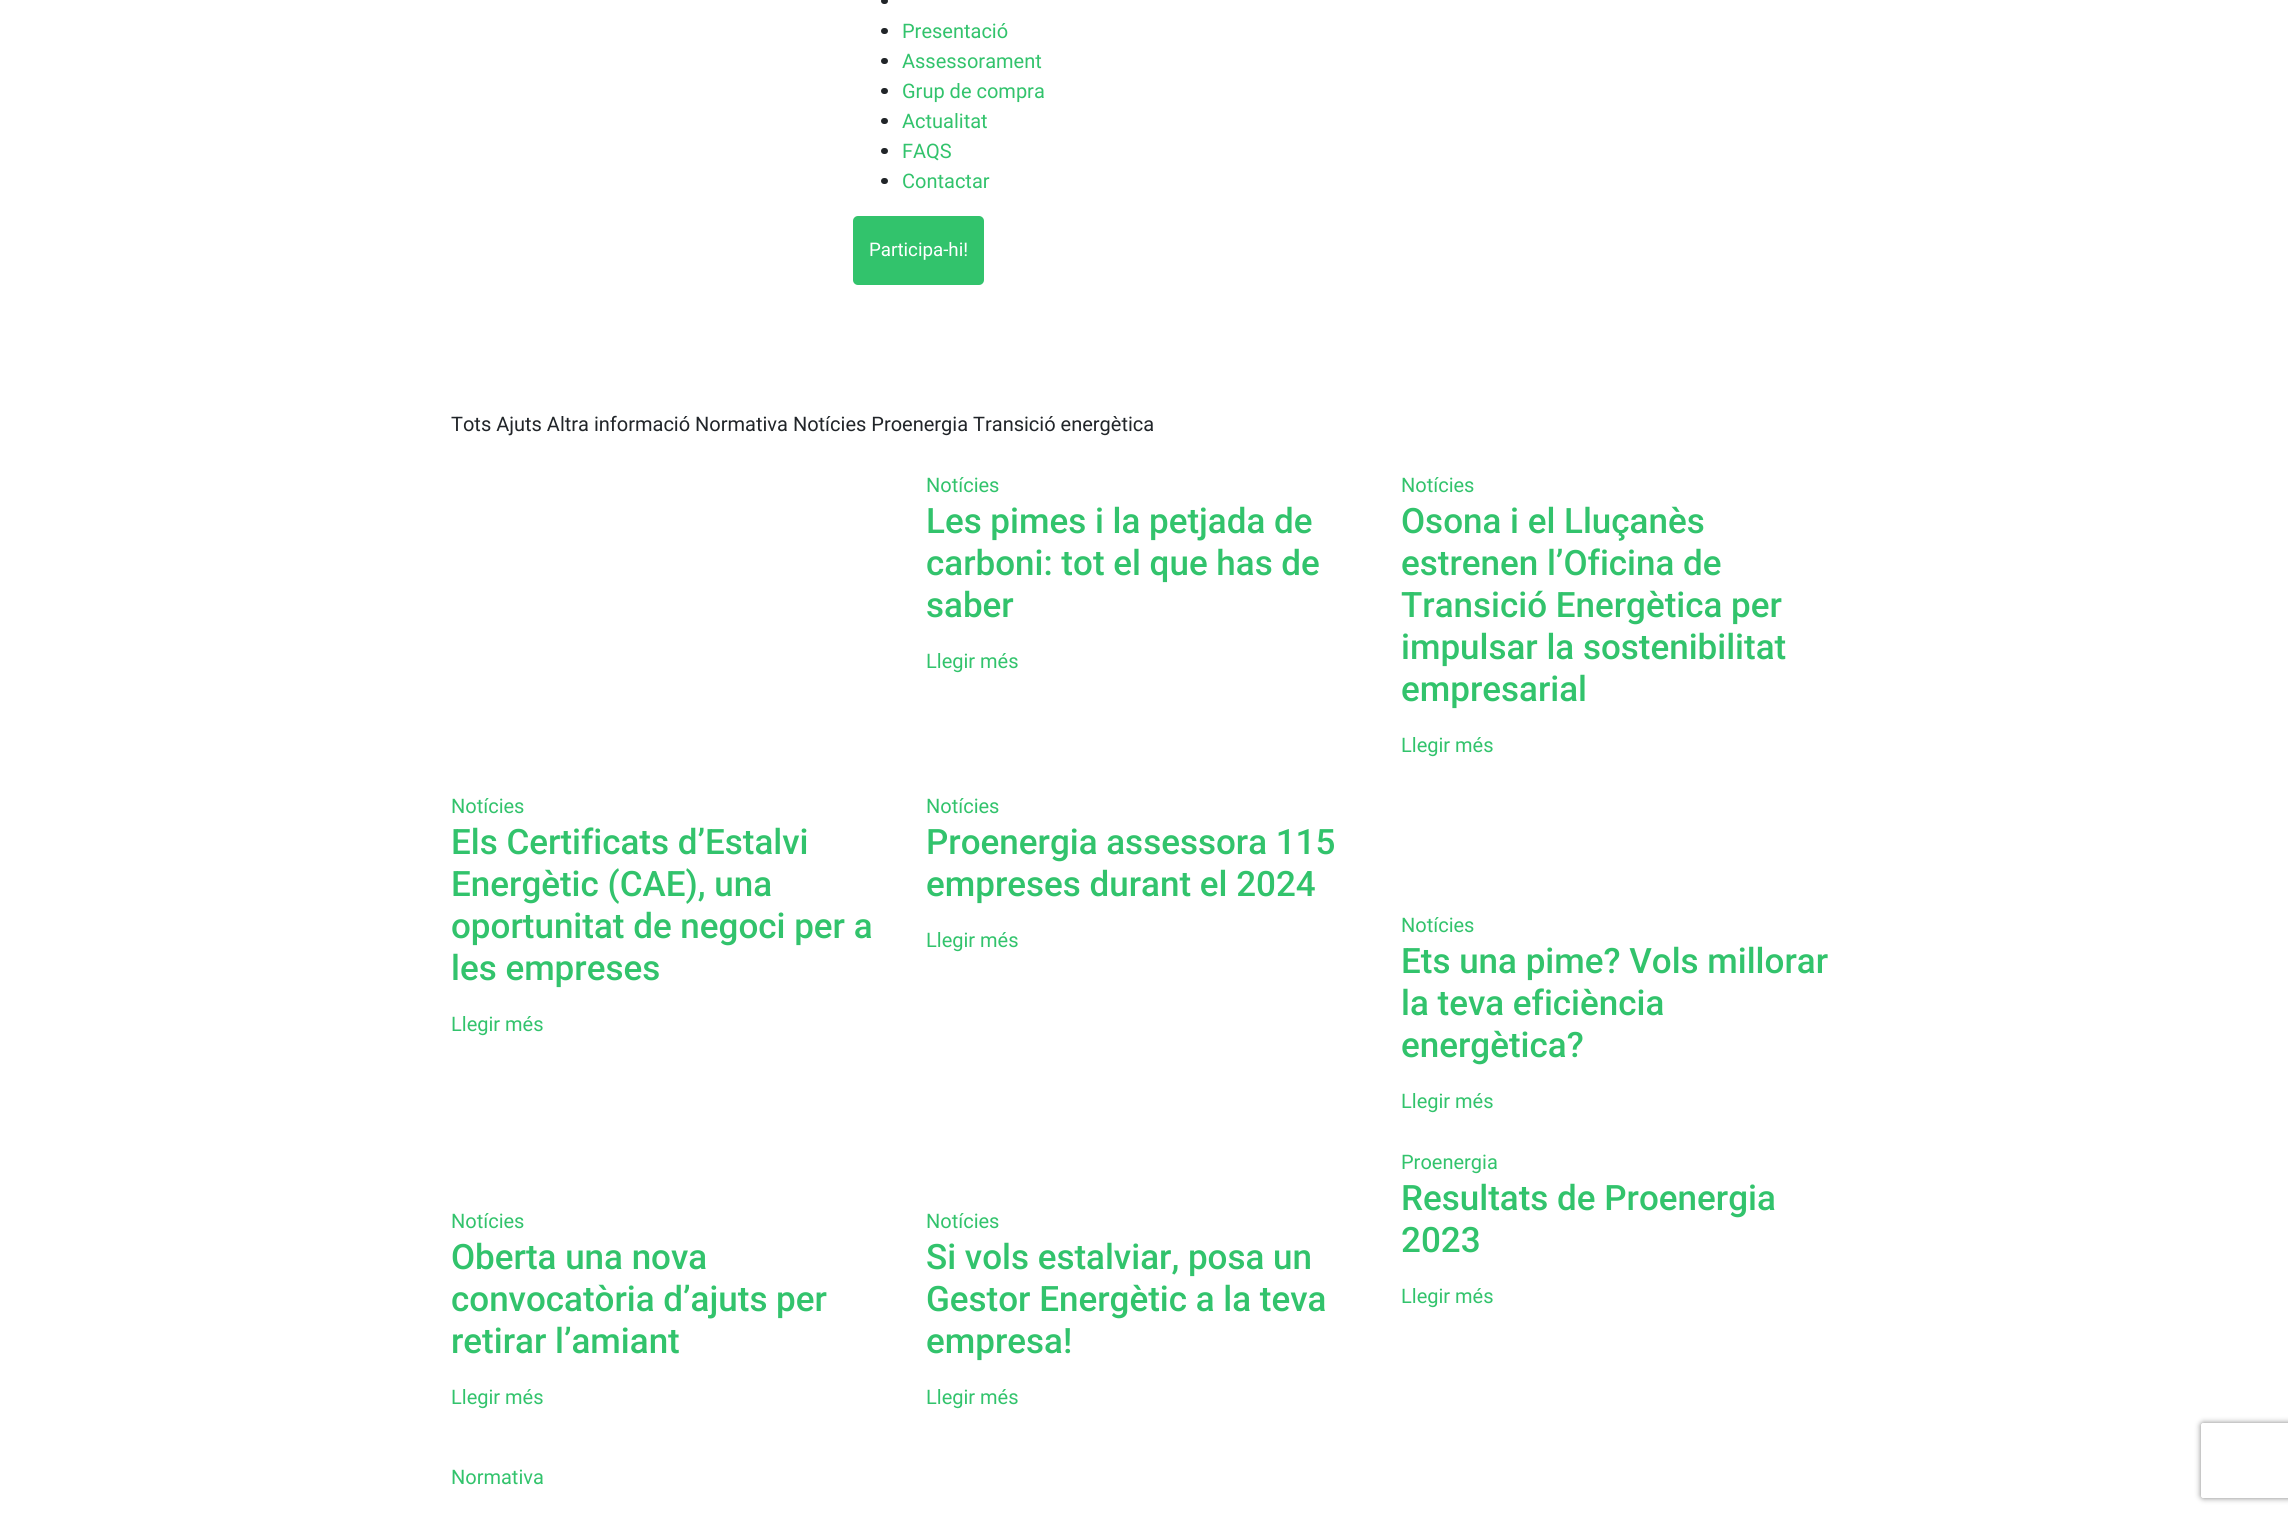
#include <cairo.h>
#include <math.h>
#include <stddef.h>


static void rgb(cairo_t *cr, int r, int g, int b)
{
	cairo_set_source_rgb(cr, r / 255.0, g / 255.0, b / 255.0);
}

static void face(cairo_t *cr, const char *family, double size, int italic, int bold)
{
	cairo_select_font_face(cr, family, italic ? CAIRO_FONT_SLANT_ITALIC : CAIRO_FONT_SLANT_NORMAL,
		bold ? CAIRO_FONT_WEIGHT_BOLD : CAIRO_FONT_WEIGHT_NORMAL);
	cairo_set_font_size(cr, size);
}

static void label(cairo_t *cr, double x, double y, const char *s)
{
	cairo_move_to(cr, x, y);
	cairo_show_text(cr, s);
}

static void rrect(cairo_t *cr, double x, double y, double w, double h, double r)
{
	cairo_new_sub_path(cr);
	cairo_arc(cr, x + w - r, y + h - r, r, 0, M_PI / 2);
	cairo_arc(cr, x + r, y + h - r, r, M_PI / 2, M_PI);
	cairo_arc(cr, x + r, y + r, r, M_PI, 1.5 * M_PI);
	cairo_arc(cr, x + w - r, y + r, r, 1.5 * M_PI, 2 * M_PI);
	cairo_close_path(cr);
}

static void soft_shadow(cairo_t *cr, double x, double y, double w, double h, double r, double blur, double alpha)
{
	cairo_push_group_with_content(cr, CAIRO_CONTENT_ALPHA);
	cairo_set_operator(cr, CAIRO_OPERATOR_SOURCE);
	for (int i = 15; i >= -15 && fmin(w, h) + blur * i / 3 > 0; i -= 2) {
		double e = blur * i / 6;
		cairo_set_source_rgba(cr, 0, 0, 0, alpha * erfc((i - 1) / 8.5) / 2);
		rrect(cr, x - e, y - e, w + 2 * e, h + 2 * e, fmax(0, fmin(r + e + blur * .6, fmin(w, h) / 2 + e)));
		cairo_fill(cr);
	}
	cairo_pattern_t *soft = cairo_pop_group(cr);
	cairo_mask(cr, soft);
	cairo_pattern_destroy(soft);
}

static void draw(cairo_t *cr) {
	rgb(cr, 255, 255, 255);
	cairo_paint(cr);
	rgb(cr, 33, 37, 41);
	rrect(cr, 881, -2, 7, 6, 3);
	cairo_fill(cr);
	rrect(cr, 881, 28, 7, 6, 3);
	cairo_fill(cr);
	face(cr, "Roboto", 20, 0, 0);
	rgb(cr, 50, 195, 108);
	label(cr, 902, 38, "Presentació");
	rgb(cr, 33, 37, 41);
	rrect(cr, 881, 58, 7, 6, 3);
	cairo_fill(cr);
	rgb(cr, 50, 195, 108);
	label(cr, 902, 68, "Assessorament");
	rgb(cr, 33, 37, 41);
	rrect(cr, 881, 88, 7, 6, 3);
	cairo_fill(cr);
	rgb(cr, 50, 195, 108);
	label(cr, 902, 98, "Grup de compra");
	rgb(cr, 33, 37, 41);
	rrect(cr, 881, 118, 7, 6, 3);
	cairo_fill(cr);
	rgb(cr, 50, 195, 108);
	label(cr, 902, 128, "Actualitat");
	rgb(cr, 33, 37, 41);
	rrect(cr, 881, 148, 7, 6, 3);
	cairo_fill(cr);
	rgb(cr, 50, 195, 108);
	label(cr, 902, 158, "FAQS");
	rgb(cr, 33, 37, 41);
	rrect(cr, 881, 178, 7, 6, 3);
	cairo_fill(cr);
	rgb(cr, 50, 195, 108);
	label(cr, 902, 188, "Contactar");
	rrect(cr, 853, 216, 131, 69, 5);
	cairo_fill(cr);
	face(cr, "Roboto", 18.75, 0, 0);
	rgb(cr, 255, 255, 255);
	label(cr, 869, 256, "Participa-hi!");
	face(cr, "Roboto", 20, 0, 0);
	rgb(cr, 33, 37, 41);
	label(cr, 451, 431, "Tots Ajuts Altra informació Normativa Notícies Proenergia Transició energètica");
	rgb(cr, 50, 195, 108);
	label(cr, 926, 492, "Notícies");
	face(cr, "Roboto Medium", 35, 0, 0);
	label(cr, 926, 533, "Les pimes i la petjada de");
	label(cr, 926, 575, "carboni: tot el que has de");
	label(cr, 926, 617, "saber");
	face(cr, "Roboto", 20, 0, 0);
	label(cr, 926, 668, "Llegir més");
	label(cr, 1401, 492, "Notícies");
	face(cr, "Roboto Medium", 35, 0, 0);
	label(cr, 1401, 533, "Osona i el Lluçanès");
	label(cr, 1401, 575, "estrenen l’Oficina de");
	label(cr, 1401, 617, "Transició Energètica per");
	label(cr, 1401, 659, "impulsar la sostenibilitat");
	label(cr, 1401, 701, "empresarial");
	face(cr, "Roboto", 20, 0, 0);
	label(cr, 1401, 752, "Llegir més");
	label(cr, 451, 813, "Notícies");
	face(cr, "Roboto Medium", 35, 0, 0);
	label(cr, 451, 854, "Els Certificats d’Estalvi");
	label(cr, 451, 896, "Energètic (CAE), una");
	label(cr, 451, 938, "oportunitat de negoci per a");
	label(cr, 451, 980, "les empreses");
	face(cr, "Roboto", 20, 0, 0);
	label(cr, 451, 1031, "Llegir més");
	label(cr, 926, 813, "Notícies");
	face(cr, "Roboto Medium", 35, 0, 0);
	label(cr, 926, 854, "Proenergia assessora 115");
	label(cr, 926, 896, "empreses durant el 2024");
	face(cr, "Roboto", 20, 0, 0);
	label(cr, 926, 947, "Llegir més");
	label(cr, 1401, 932, "Notícies");
	face(cr, "Roboto Medium", 35, 0, 0);
	label(cr, 1401, 973, "Ets una pime? Vols millorar");
	label(cr, 1401, 1015, "la teva eficiència");
	label(cr, 1401, 1057, "energètica?");
	face(cr, "Roboto", 20, 0, 0);
	label(cr, 1401, 1108, "Llegir més");
	label(cr, 451, 1228, "Notícies");
	face(cr, "Roboto Medium", 35, 0, 0);
	label(cr, 451, 1269, "Oberta una nova");
	label(cr, 451, 1311, "convocatòria d’ajuts per");
	label(cr, 451, 1353, "retirar l’amiant");
	face(cr, "Roboto", 20, 0, 0);
	label(cr, 451, 1404, "Llegir més");
	label(cr, 926, 1228, "Notícies");
	face(cr, "Roboto Medium", 35, 0, 0);
	label(cr, 926, 1269, "Si vols estalviar, posa un");
	label(cr, 926, 1311, "Gestor Energètic a la teva");
	label(cr, 926, 1353, "empresa!");
	face(cr, "Roboto", 20, 0, 0);
	label(cr, 926, 1404, "Llegir més");
	label(cr, 1401, 1169, "Proenergia");
	face(cr, "Roboto Medium", 35, 0, 0);
	label(cr, 1401, 1210, "Resultats de Proenergia");
	label(cr, 1401, 1252, "2023");
	face(cr, "Roboto", 20, 0, 0);
	label(cr, 1401, 1303, "Llegir més");
	label(cr, 451, 1484, "Normativa");
	cairo_save(cr);
	cairo_set_fill_rule(cr, CAIRO_FILL_RULE_EVEN_ODD);
	cairo_new_path(cr);
	cairo_move_to(cr, 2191, 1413);
	cairo_line_to(cr, 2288, 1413);
	cairo_line_to(cr, 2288, 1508);
	cairo_line_to(cr, 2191, 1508);
	cairo_close_path(cr);
	cairo_move_to(cr, 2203.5, 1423);
	cairo_line_to(cr, 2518.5, 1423);
	cairo_curve_to(cr, 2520, 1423, 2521, 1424, 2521, 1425.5);
	cairo_line_to(cr, 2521, 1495.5);
	cairo_curve_to(cr, 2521, 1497, 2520, 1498, 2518.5, 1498);
	cairo_line_to(cr, 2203.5, 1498);
	cairo_curve_to(cr, 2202, 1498, 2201, 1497, 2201, 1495.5);
	cairo_line_to(cr, 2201, 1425.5);
	cairo_curve_to(cr, 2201, 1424, 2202, 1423, 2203.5, 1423);
	cairo_close_path(cr);
	cairo_clip(cr);
	rgb(cr, 128, 128, 128);
	soft_shadow(cr, 2201, 1423, 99, 75, 2.5, 3, 1);
	cairo_restore(cr);
}

int main(void) {
	cairo_surface_t *surface = cairo_image_surface_create(CAIRO_FORMAT_RGB24, 2288, 1514);
	cairo_t *cr = cairo_create(surface);
	cairo_font_options_t *options = cairo_font_options_create();
	cairo_font_options_set_hint_metrics(options, CAIRO_HINT_METRICS_OFF);
	cairo_font_options_set_hint_style(options, CAIRO_HINT_STYLE_NONE);
	cairo_set_font_options(cr, options);
	cairo_set_miter_limit(cr, 4);
	draw(cr);
	cairo_surface_write_to_png(surface, "render.png");
	cairo_font_options_destroy(options);
	cairo_destroy(cr);
	cairo_surface_destroy(surface);
	return 0;
}
